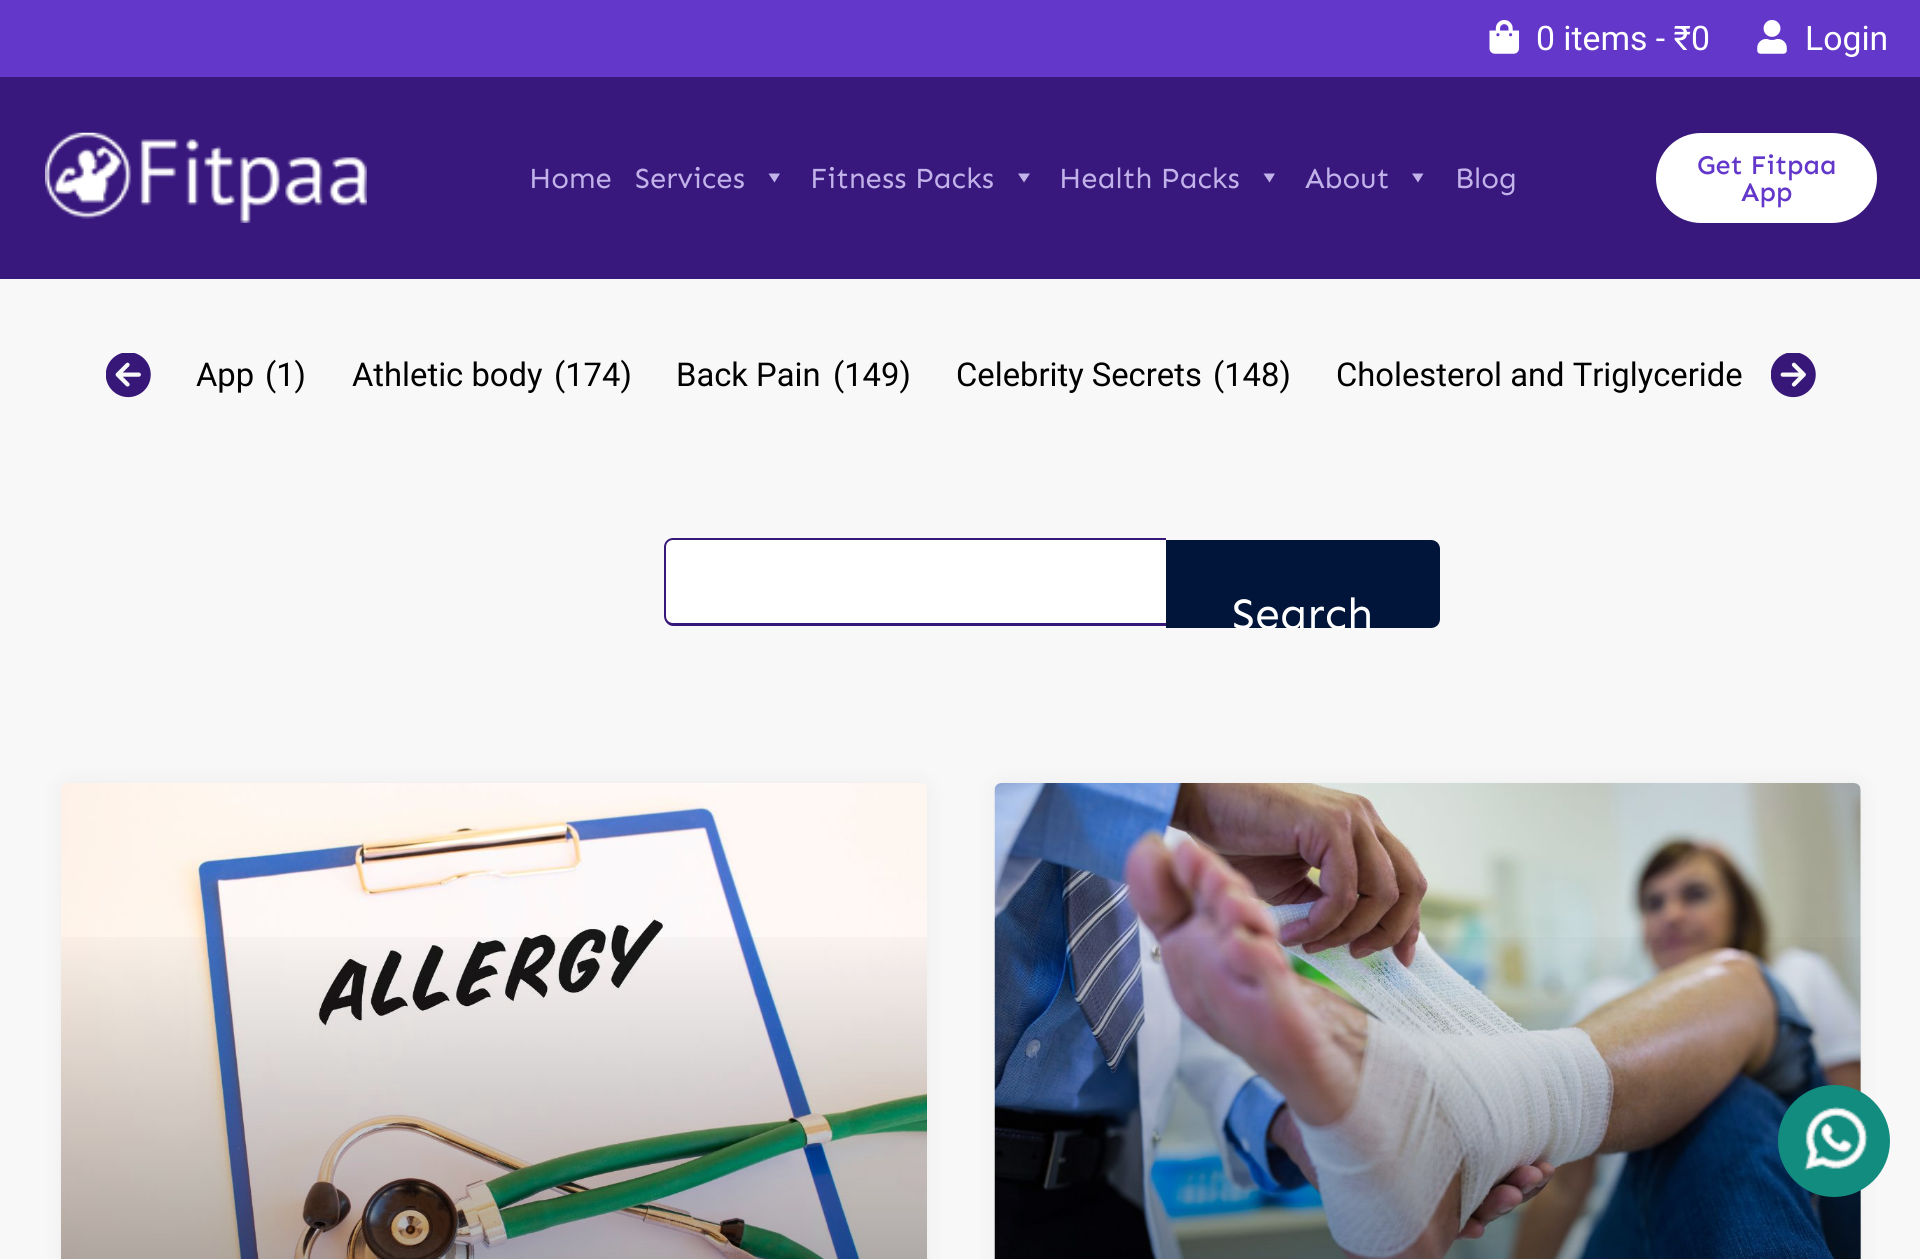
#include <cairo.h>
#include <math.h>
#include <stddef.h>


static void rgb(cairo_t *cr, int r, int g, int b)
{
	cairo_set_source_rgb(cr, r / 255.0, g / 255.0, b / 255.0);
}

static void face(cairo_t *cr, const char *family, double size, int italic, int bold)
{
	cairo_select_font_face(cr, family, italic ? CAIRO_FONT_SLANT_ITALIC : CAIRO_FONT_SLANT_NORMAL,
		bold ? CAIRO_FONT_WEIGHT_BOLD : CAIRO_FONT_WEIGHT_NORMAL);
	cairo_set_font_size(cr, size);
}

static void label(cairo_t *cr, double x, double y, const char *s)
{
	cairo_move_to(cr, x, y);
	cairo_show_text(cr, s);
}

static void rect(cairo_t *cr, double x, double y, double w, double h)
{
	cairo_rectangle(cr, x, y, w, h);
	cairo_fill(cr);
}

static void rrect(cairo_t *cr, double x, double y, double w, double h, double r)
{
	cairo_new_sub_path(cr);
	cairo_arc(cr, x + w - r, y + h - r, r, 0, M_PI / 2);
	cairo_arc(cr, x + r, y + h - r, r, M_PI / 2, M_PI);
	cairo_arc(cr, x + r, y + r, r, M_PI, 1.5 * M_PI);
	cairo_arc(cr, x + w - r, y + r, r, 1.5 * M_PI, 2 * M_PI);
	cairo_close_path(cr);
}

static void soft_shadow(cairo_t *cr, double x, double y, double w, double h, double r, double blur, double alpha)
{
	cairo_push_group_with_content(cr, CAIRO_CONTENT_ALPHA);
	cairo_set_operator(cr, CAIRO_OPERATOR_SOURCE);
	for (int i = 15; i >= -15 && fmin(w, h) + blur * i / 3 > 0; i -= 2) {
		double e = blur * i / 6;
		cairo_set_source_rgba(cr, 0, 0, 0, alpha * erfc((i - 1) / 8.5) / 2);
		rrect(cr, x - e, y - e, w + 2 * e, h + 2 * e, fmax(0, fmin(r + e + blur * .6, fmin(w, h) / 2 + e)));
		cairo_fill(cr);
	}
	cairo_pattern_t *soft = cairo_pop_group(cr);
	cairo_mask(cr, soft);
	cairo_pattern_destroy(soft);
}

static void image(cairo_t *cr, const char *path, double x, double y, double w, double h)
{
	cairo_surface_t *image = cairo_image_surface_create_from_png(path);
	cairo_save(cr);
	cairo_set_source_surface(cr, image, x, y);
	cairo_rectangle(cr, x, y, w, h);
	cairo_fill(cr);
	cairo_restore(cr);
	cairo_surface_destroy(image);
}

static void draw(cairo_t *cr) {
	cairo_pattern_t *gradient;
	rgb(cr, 57, 24, 125);
	cairo_paint(cr);
	rgb(cr, 98, 55, 202);
	rect(cr, 0, 0, 1920, 77);
	image(cr, "image0.png", 1489, 20, 31, 34);
	face(cr, "Roboto", 33.75, 0, 0);
	rgb(cr, 255, 255, 255);
	label(cr, 1536, 50, "0 items - ₹0");
	image(cr, "image1.png", 1757, 20, 30, 34);
	label(cr, 1805, 50, "Login");
	image(cr, "image2.png", 45, 132, 322, 91);
	face(cr, "Sen", 29.25, 0, 0);
	rgb(cr, 194, 178, 234);
	label(cr, 529, 188, "Home");
	label(cr, 635, 188, "Services");
	cairo_new_path(cr);
	cairo_move_to(cr, 780, 173.5);
	cairo_line_to(cr, 774.5, 182.5);
	cairo_line_to(cr, 768.5, 173.5);
	cairo_close_path(cr);
	cairo_fill(cr);
	label(cr, 810, 188, "Fitness Packs");
	cairo_new_path(cr);
	cairo_move_to(cr, 1030, 173.5);
	cairo_line_to(cr, 1024, 182.5);
	cairo_line_to(cr, 1018, 173.5);
	cairo_close_path(cr);
	cairo_fill(cr);
	label(cr, 1059, 188, "Health Packs");
	cairo_new_path(cr);
	cairo_move_to(cr, 1275, 173.5);
	cairo_line_to(cr, 1269.5, 182.5);
	cairo_line_to(cr, 1263.5, 173.5);
	cairo_close_path(cr);
	cairo_fill(cr);
	label(cr, 1305, 188, "About");
	cairo_new_path(cr);
	cairo_move_to(cr, 1423.5, 173.5);
	cairo_line_to(cr, 1418, 182.5);
	cairo_line_to(cr, 1412, 173.5);
	cairo_close_path(cr);
	cairo_fill(cr);
	label(cr, 1455, 188, "Blog");
	rgb(cr, 255, 255, 255);
	rrect(cr, 1656, 133, 221, 90, 45);
	cairo_fill(cr);
	face(cr, "Sen Medium", 27, 0, 0);
	rgb(cr, 98, 55, 202);
	label(cr, 1697, 174, "Get Fitpaa");
	label(cr, 1741, 201, "App");
	rgb(cr, 248, 248, 248);
	rect(cr, 0, 279, 1920, 980);
	image(cr, "image3.png", 106, 353, 45, 45);
	face(cr, "Roboto", 32.75, 0, 0);
	rgb(cr, 0, 0, 0);
	label(cr, 196, 386, "App");
	label(cr, 265, 386, "(1)");
	label(cr, 352, 386, "Athletic body");
	label(cr, 554, 386, "(174)");
	label(cr, 676, 386, "Back Pain");
	label(cr, 833, 386, "(149)");
	label(cr, 956, 386, "Celebrity Secrets");
	label(cr, 1213, 386, "(148)");
	label(cr, 1336, 386, "Cholesterol and Triglyceride");
	image(cr, "image4.png", 1771, 353, 45, 45);
	rgb(cr, 255, 255, 255);
	cairo_new_path(cr);
	cairo_move_to(cr, 673, 538);
	cairo_line_to(cr, 1166, 538);
	cairo_line_to(cr, 1166, 626);
	cairo_line_to(cr, 673, 626);
	cairo_curve_to(cr, 668, 626, 664, 622, 664, 617);
	cairo_line_to(cr, 664, 547);
	cairo_curve_to(cr, 664, 542, 668, 538, 673, 538);
	cairo_close_path(cr);
	cairo_fill(cr);
	rgb(cr, 55, 23, 119);
	cairo_set_fill_rule(cr, CAIRO_FILL_RULE_EVEN_ODD);
	cairo_new_path(cr);
	cairo_move_to(cr, 673, 538);
	cairo_line_to(cr, 1166, 538);
	cairo_line_to(cr, 1166, 626);
	cairo_line_to(cr, 673, 626);
	cairo_curve_to(cr, 668, 626, 664, 621, 664, 616);
	cairo_line_to(cr, 664, 547);
	cairo_curve_to(cr, 664, 542, 668, 538, 673, 538);
	cairo_close_path(cr);
	cairo_move_to(cr, 673, 540);
	cairo_line_to(cr, 1166, 540);
	cairo_line_to(cr, 1166, 623);
	cairo_line_to(cr, 673, 623);
	cairo_curve_to(cr, 669, 623, 666, 620, 666, 616);
	cairo_line_to(cr, 666, 547);
	cairo_curve_to(cr, 666, 543, 669, 540, 673, 540);
	cairo_close_path(cr);
	cairo_fill(cr);
	rgb(cr, 0, 21, 57);
	cairo_new_path(cr);
	cairo_move_to(cr, 1167, 541);
	cairo_line_to(cr, 1431, 541);
	cairo_curve_to(cr, 1435.5, 541, 1439, 544.5, 1439, 549);
	cairo_line_to(cr, 1439, 619);
	cairo_curve_to(cr, 1439, 623.5, 1435.5, 627, 1431, 627);
	cairo_line_to(cr, 1167, 627);
	cairo_close_path(cr);
	cairo_fill_preserve(cr);
	cairo_stroke(cr);
	face(cr, "Sen", 45, 0, 0);
	rgb(cr, 255, 255, 255);
	label(cr, 1232, 629, "Search");
	rgb(cr, 0, 0, 0);
	soft_shadow(cr, 61, 783, 866, 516, 7, 11, 0.05);
	image(cr, "image5.png", 61, 783, 866, 476);
	gradient = cairo_pattern_create_linear(494, 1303, 494, 783);
	cairo_pattern_add_color_stop_rgba(gradient, 0, 0, 0, 0, 0.35);
	cairo_pattern_add_color_stop_rgba(gradient, 0.75, 0, 0, 0, 0);
	cairo_set_source(cr, gradient);
	cairo_pattern_destroy(gradient);
	rect(cr, 61, 937, 866, 322);
	rgb(cr, 0, 0, 0);
	soft_shadow(cr, 995, 783, 866, 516, 7, 11, 0.05);
	rgb(cr, 255, 255, 255);
	rrect(cr, 995, 783, 866, 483, 7);
	cairo_fill(cr);
	image(cr, "image6.png", 994, 783, 867, 476);
	gradient = cairo_pattern_create_linear(1428, 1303, 1428, 783);
	cairo_pattern_add_color_stop_rgba(gradient, 0, 0, 0, 0, 0.35);
	cairo_pattern_add_color_stop_rgba(gradient, 0.75, 0, 0, 0, 0);
	cairo_set_source(cr, gradient);
	cairo_pattern_destroy(gradient);
	rect(cr, 995, 937, 866, 322);
	rgb(cr, 18, 140, 126);
	cairo_arc(cr, 1834, 1141, 56, 0, 2 * M_PI);
	cairo_fill(cr);
	image(cr, "image7.png", 1804, 1107, 64, 64);
}

int main(void) {
	cairo_surface_t *surface = cairo_image_surface_create(CAIRO_FORMAT_RGB24, 1920, 1259);
	cairo_t *cr = cairo_create(surface);
	cairo_font_options_t *options = cairo_font_options_create();
	cairo_font_options_set_hint_metrics(options, CAIRO_HINT_METRICS_OFF);
	cairo_font_options_set_hint_style(options, CAIRO_HINT_STYLE_NONE);
	cairo_set_font_options(cr, options);
	cairo_set_miter_limit(cr, 4);
	draw(cr);
	cairo_surface_write_to_png(surface, "render.png");
	cairo_font_options_destroy(options);
	cairo_destroy(cr);
	cairo_surface_destroy(surface);
	return 0;
}
